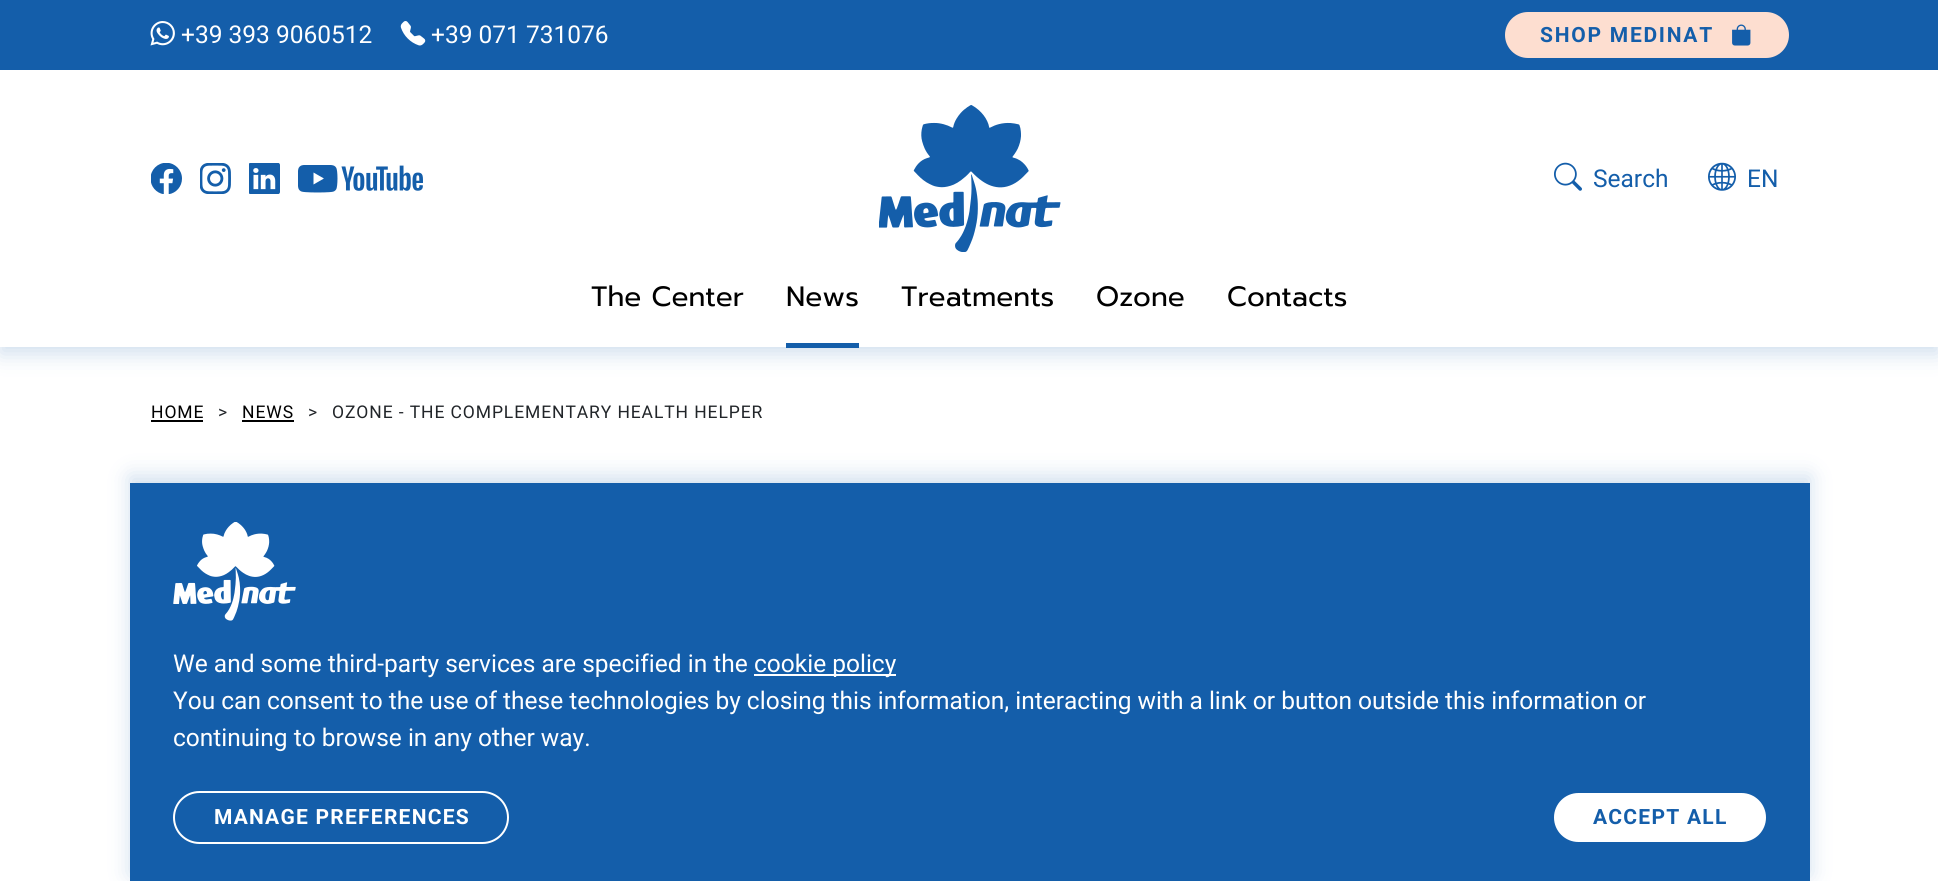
#include <cairo.h>
#include <math.h>
#include <stddef.h>


static void rgb(cairo_t *cr, int r, int g, int b)
{
	cairo_set_source_rgb(cr, r / 255.0, g / 255.0, b / 255.0);
}

static void face(cairo_t *cr, const char *family, double size, int italic, int bold)
{
	cairo_select_font_face(cr, family, italic ? CAIRO_FONT_SLANT_ITALIC : CAIRO_FONT_SLANT_NORMAL,
		bold ? CAIRO_FONT_WEIGHT_BOLD : CAIRO_FONT_WEIGHT_NORMAL);
	cairo_set_font_size(cr, size);
}

static void label(cairo_t *cr, double x, double y, const char *s)
{
	cairo_move_to(cr, x, y);
	cairo_show_text(cr, s);
}

static void tracked(cairo_t *cr, double x, double y, const char *s, double letter, double word)
{
	cairo_move_to(cr, x, y);
	while (*s) {
		char ch[5] = {0};
		int n = 0;
		do ch[n++] = *s++; while ((*s & 0xC0) == 0x80);
		cairo_show_text(cr, ch);
		cairo_rel_move_to(cr, letter + word * (*ch == ' '), 0);
	}
}

static void rect(cairo_t *cr, double x, double y, double w, double h)
{
	cairo_rectangle(cr, x, y, w, h);
	cairo_fill(cr);
}

static void rrect(cairo_t *cr, double x, double y, double w, double h, double r)
{
	cairo_new_sub_path(cr);
	cairo_arc(cr, x + w - r, y + h - r, r, 0, M_PI / 2);
	cairo_arc(cr, x + r, y + h - r, r, M_PI / 2, M_PI);
	cairo_arc(cr, x + r, y + r, r, M_PI, 1.5 * M_PI);
	cairo_arc(cr, x + w - r, y + r, r, 1.5 * M_PI, 2 * M_PI);
	cairo_close_path(cr);
}

static void soft_shadow(cairo_t *cr, double x, double y, double w, double h, double r, double blur, double alpha)
{
	cairo_push_group_with_content(cr, CAIRO_CONTENT_ALPHA);
	cairo_set_operator(cr, CAIRO_OPERATOR_SOURCE);
	for (int i = 15; i >= -15 && fmin(w, h) + blur * i / 3 > 0; i -= 2) {
		double e = blur * i / 6;
		cairo_set_source_rgba(cr, 0, 0, 0, alpha * erfc((i - 1) / 8.5) / 2);
		rrect(cr, x - e, y - e, w + 2 * e, h + 2 * e, fmax(0, fmin(r + e + blur * .6, fmin(w, h) / 2 + e)));
		cairo_fill(cr);
	}
	cairo_pattern_t *soft = cairo_pop_group(cr);
	cairo_mask(cr, soft);
	cairo_pattern_destroy(soft);
}

static void image(cairo_t *cr, const char *path, double x, double y, double w, double h)
{
	cairo_surface_t *image = cairo_image_surface_create_from_png(path);
	cairo_save(cr);
	cairo_set_source_surface(cr, image, x, y);
	cairo_rectangle(cr, x, y, w, h);
	cairo_fill(cr);
	cairo_restore(cr);
	cairo_surface_destroy(image);
}

static void draw(cairo_t *cr) {
	rgb(cr, 255, 255, 255);
	cairo_paint(cr);
	rgb(cr, 20, 94, 170);
	rect(cr, 0, 0, 1938, 70);
	image(cr, "image0.png", 150, 21, 25, 25);
	face(cr, "Roboto", 24.5, 0, 0);
	rgb(cr, 255, 255, 255);
	label(cr, 181, 43, "+39 393 9060512");
	image(cr, "image1.png", 400, 21, 26, 25);
	label(cr, 431, 43, "+39 071 731076");
	rgb(cr, 253, 222, 208);
	rrect(cr, 1505, 12, 284, 46, 23);
	cairo_fill(cr);
	face(cr, "Roboto", 21, 0, 1);
	rgb(cr, 20, 94, 170);
	tracked(cr, 1540, 42, "SHOP MEDINAT", 1.75, 0);
	image(cr, "image2.png", 1732, 24, 19, 22);
	cairo_save(cr);
	cairo_set_fill_rule(cr, CAIRO_FILL_RULE_EVEN_ODD);
	cairo_new_path(cr);
	cairo_move_to(cr, 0, 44);
	cairo_line_to(cr, 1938, 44);
	cairo_line_to(cr, 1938, 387);
	cairo_line_to(cr, 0, 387);
	cairo_close_path(cr);
	cairo_move_to(cr, 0, 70);
	cairo_line_to(cr, 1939, 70);
	cairo_line_to(cr, 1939, 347);
	cairo_line_to(cr, 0, 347);
	cairo_close_path(cr);
	cairo_clip(cr);
	rgb(cr, 20, 94, 170);
	soft_shadow(cr, 0, 77, 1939, 277, 0, 10.5, 0.2);
	cairo_restore(cr);
	image(cr, "image3.png", 151, 163, 31, 31);
	image(cr, "image4.png", 200, 163, 31, 31);
	image(cr, "image5.png", 249, 163, 31, 31);
	image(cr, "image6.png", 298, 165, 125, 28);
	image(cr, "image7.png", 879, 105, 182, 147);
	image(cr, "image8.png", 1554, 162, 28, 29);
	face(cr, "Roboto", 24.5, 0, 0);
	label(cr, 1593, 187, "Search");
	image(cr, "image9.png", 1708, 162, 28, 29);
	label(cr, 1747, 187, "EN");
	face(cr, "Prompt", 28, 0, 0);
	rgb(cr, 0, 0, 0);
	label(cr, 591, 306, "The Center");
	rgb(cr, 20, 94, 170);
	rect(cr, 786, 343, 73, 5);
	rgb(cr, 0, 0, 0);
	label(cr, 786, 306, "News");
	label(cr, 901, 306, "Treatments");
	label(cr, 1096, 306, "Ozone");
	label(cr, 1227, 306, "Contacts");
	face(cr, "Roboto", 17.5, 0, 0);
	tracked(cr, 151, 418, "HOME", 0.9, 0);
	rect(cr, 151, 420, 52, 2);
	rgb(cr, 33, 37, 41);
	tracked(cr, 218, 418, ">", 0.9, 0);
	rgb(cr, 0, 0, 0);
	tracked(cr, 242, 418, "NEWS", 0.9, 0);
	rect(cr, 242, 420, 52, 2);
	rgb(cr, 33, 37, 41);
	tracked(cr, 308, 418, ">", 0.9, 0);
	tracked(cr, 332, 418, "OZONE - THE COMPLEMENTARY HEALTH HELPER", 0.9, 0);
	rgb(cr, 20, 94, 170);
	soft_shadow(cr, 130, 476, 1680, 399, 0, 10.5, 0.2);
	rgb(cr, 20, 94, 170);
	rect(cr, 130, 483, 1680, 398);
	image(cr, "image10.png", 173, 522, 123, 99);
	face(cr, "Roboto", 24.5, 0, 0);
	rgb(cr, 255, 255, 255);
	label(cr, 173, 672, "We and some third-party services are specified in the");
	rect(cr, 754, 674, 142, 2);
	label(cr, 754, 672, "cookie policy");
	label(cr, 173, 709, "You can consent to the use of these technologies by closing this information, interacting with a link or button outside this information or");
	label(cr, 173, 746, "continuing to browse in any other way.");
	rrect(cr, 174, 792, 334, 51, 25.5);
	cairo_stroke(cr);
	face(cr, "Roboto", 21, 0, 1);
	tracked(cr, 214, 824, "MANAGE PREFERENCES", 1.25, 0);
	rrect(cr, 1554, 793, 212, 49, 24.5);
	cairo_fill(cr);
	rgb(cr, 20, 94, 170);
	tracked(cr, 1593, 824, "ACCEPT ALL", 1.25, 0);
}

int main(void) {
	cairo_surface_t *surface = cairo_image_surface_create(CAIRO_FORMAT_RGB24, 1938, 881);
	cairo_t *cr = cairo_create(surface);
	cairo_font_options_t *options = cairo_font_options_create();
	cairo_font_options_set_hint_metrics(options, CAIRO_HINT_METRICS_OFF);
	cairo_font_options_set_hint_style(options, CAIRO_HINT_STYLE_NONE);
	cairo_set_font_options(cr, options);
	cairo_set_miter_limit(cr, 4);
	draw(cr);
	cairo_surface_write_to_png(surface, "render.png");
	cairo_font_options_destroy(options);
	cairo_destroy(cr);
	cairo_surface_destroy(surface);
	return 0;
}
